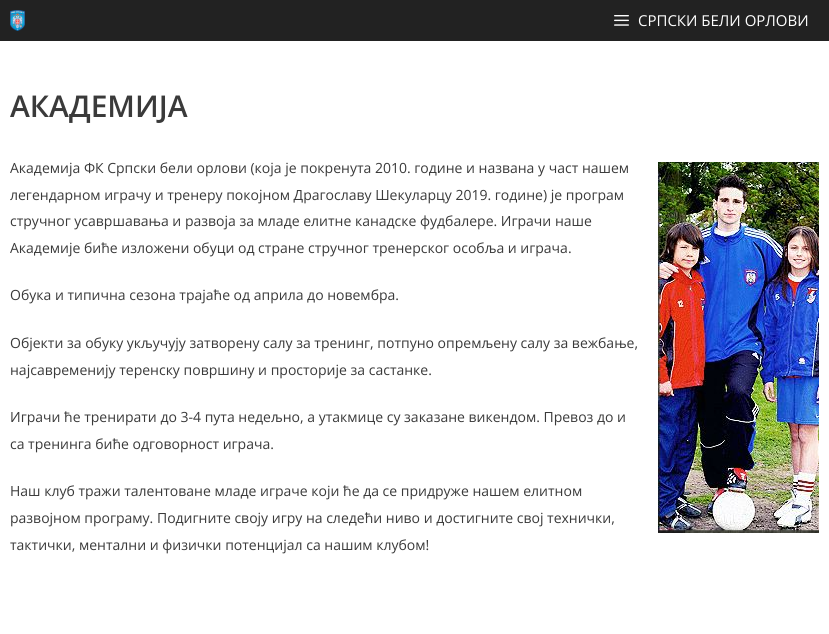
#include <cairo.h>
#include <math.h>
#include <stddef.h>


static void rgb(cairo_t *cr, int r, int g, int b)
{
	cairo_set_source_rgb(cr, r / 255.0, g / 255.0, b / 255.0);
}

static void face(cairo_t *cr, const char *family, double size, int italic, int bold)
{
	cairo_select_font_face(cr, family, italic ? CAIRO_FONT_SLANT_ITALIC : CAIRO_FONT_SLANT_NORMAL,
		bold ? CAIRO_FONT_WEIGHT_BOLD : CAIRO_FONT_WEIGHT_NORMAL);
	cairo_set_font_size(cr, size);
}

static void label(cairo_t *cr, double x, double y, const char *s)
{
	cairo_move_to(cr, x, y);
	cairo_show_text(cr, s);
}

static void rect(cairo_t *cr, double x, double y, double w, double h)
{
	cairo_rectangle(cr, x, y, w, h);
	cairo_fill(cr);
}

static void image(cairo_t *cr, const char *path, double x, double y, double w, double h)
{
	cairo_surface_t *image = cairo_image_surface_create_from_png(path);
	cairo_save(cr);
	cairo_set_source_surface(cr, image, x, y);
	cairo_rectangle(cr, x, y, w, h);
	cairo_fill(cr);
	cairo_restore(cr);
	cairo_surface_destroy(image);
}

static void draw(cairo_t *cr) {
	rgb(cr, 255, 255, 255);
	cairo_paint(cr);
	rgb(cr, 34, 34, 34);
	rect(cr, 0, 0, 829, 41);
	image(cr, "image0.png", 10, 10, 15, 21);
	image(cr, "image1.png", 614, 15, 15, 11);
	face(cr, "Open Sans", 15, 0, 0);
	rgb(cr, 255, 255, 255);
	label(cr, 638, 26, "СРПСКИ БЕЛИ ОРЛОВИ");
	face(cr, "Open Sans SemiBold", 30, 0, 0);
	rgb(cr, 58, 58, 58);
	label(cr, 10, 117, "АКАДЕМИЈА");
	face(cr, "Open Sans", 14, 0, 0);
	label(cr, 10, 173, "Академија ФК Српски бели орлови (која је покренута 2010. године и названа у част нашем");
	label(cr, 10, 200, "легендарном играчу и тренеру покојном Драгославу Шекуларцу 2019. године) је програм");
	label(cr, 10, 226, "стручног усавршавања и развоја за младе елитне канадске фудбалере. Играчи наше");
	label(cr, 10, 253, "Академије биће изложени обуци од стране стручног тренерског особља и играча.");
	image(cr, "image2.png", 658, 162, 161, 371);
	label(cr, 10, 300, "Обука и типична сезона трајаће од априла до новембра.");
	label(cr, 10, 348, "Објекти за обуку укључују затворену салу за тренинг, потпуно опремљену салу за вежбање,");
	label(cr, 10, 375, "најсавременију теренску површину и просторије за састанке.");
	label(cr, 10, 422, "Играчи ће тренирати до 3-4 пута недељно, а утакмице су заказане викендом. Превоз до и");
	label(cr, 10, 449, "са тренинга биће одговорност играча.");
	label(cr, 10, 496, "Наш клуб тражи талентоване младе играче који ће да се придруже нашем елитном");
	label(cr, 10, 523, "развојном програму. Подигните своју игру на следећи ниво и достигните свој технички,");
	label(cr, 10, 550, "тактички, ментални и физички потенцијал са нашим клубом!");
}

int main(void) {
	cairo_surface_t *surface = cairo_image_surface_create(CAIRO_FORMAT_RGB24, 829, 634);
	cairo_t *cr = cairo_create(surface);
	cairo_font_options_t *options = cairo_font_options_create();
	cairo_font_options_set_hint_metrics(options, CAIRO_HINT_METRICS_OFF);
	cairo_font_options_set_hint_style(options, CAIRO_HINT_STYLE_NONE);
	cairo_set_font_options(cr, options);
	cairo_set_miter_limit(cr, 4);
	draw(cr);
	cairo_surface_write_to_png(surface, "render.png");
	cairo_font_options_destroy(options);
	cairo_destroy(cr);
	cairo_surface_destroy(surface);
	return 0;
}
